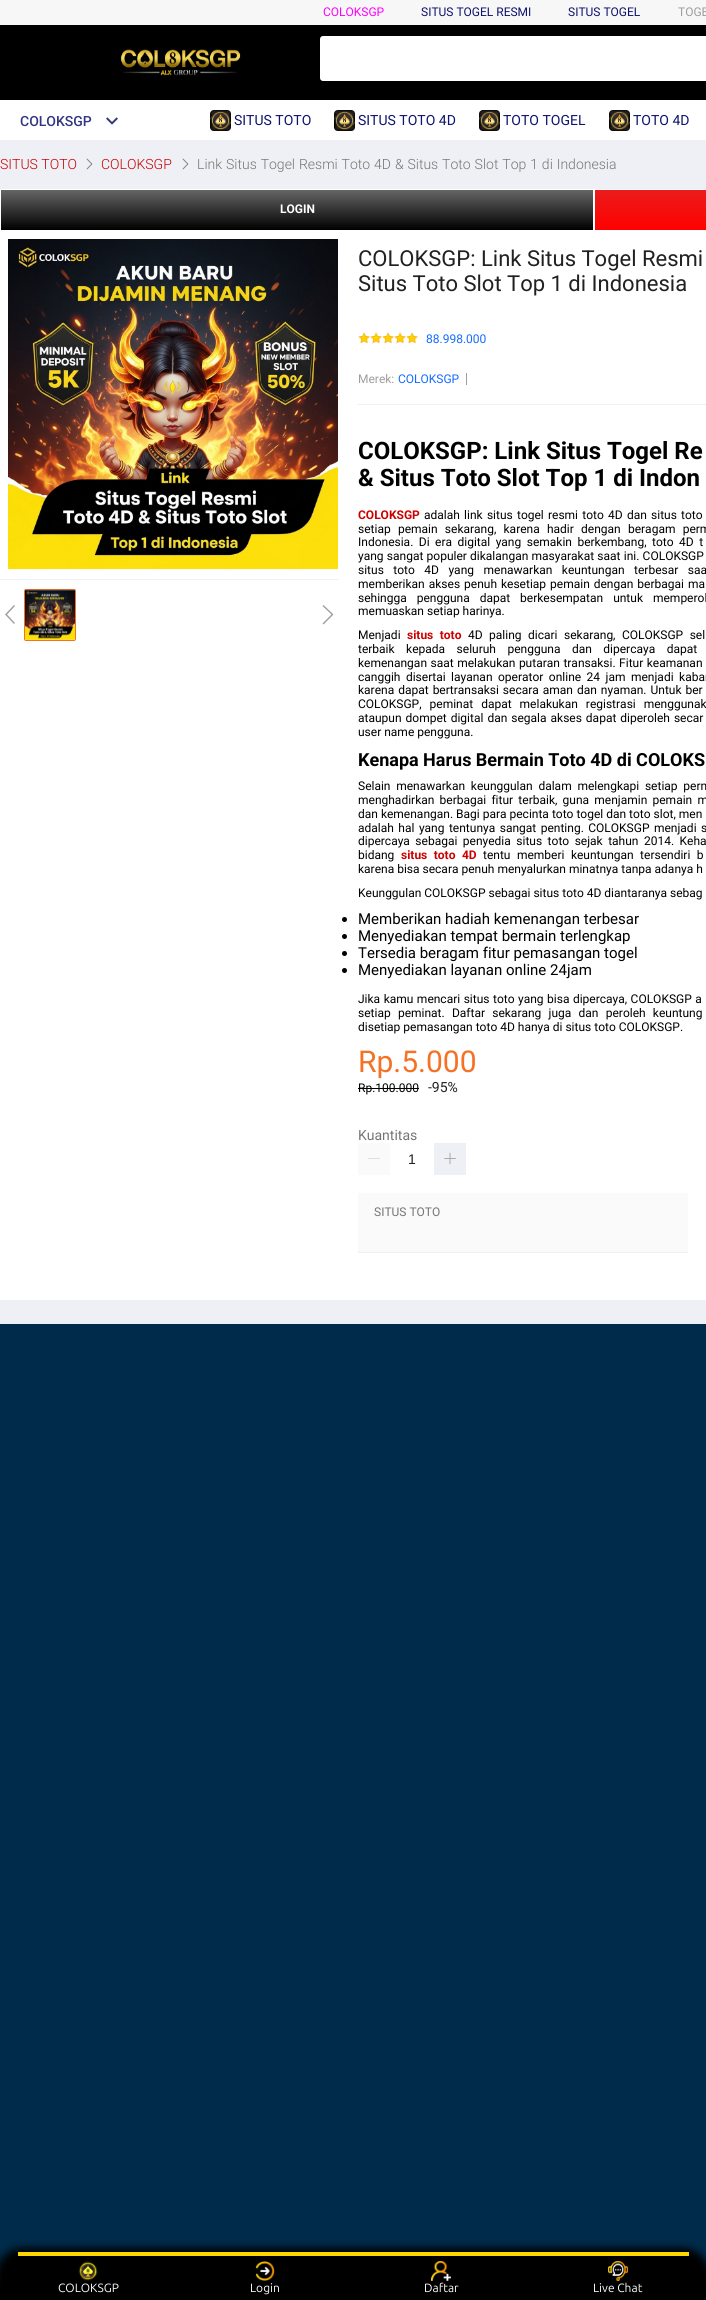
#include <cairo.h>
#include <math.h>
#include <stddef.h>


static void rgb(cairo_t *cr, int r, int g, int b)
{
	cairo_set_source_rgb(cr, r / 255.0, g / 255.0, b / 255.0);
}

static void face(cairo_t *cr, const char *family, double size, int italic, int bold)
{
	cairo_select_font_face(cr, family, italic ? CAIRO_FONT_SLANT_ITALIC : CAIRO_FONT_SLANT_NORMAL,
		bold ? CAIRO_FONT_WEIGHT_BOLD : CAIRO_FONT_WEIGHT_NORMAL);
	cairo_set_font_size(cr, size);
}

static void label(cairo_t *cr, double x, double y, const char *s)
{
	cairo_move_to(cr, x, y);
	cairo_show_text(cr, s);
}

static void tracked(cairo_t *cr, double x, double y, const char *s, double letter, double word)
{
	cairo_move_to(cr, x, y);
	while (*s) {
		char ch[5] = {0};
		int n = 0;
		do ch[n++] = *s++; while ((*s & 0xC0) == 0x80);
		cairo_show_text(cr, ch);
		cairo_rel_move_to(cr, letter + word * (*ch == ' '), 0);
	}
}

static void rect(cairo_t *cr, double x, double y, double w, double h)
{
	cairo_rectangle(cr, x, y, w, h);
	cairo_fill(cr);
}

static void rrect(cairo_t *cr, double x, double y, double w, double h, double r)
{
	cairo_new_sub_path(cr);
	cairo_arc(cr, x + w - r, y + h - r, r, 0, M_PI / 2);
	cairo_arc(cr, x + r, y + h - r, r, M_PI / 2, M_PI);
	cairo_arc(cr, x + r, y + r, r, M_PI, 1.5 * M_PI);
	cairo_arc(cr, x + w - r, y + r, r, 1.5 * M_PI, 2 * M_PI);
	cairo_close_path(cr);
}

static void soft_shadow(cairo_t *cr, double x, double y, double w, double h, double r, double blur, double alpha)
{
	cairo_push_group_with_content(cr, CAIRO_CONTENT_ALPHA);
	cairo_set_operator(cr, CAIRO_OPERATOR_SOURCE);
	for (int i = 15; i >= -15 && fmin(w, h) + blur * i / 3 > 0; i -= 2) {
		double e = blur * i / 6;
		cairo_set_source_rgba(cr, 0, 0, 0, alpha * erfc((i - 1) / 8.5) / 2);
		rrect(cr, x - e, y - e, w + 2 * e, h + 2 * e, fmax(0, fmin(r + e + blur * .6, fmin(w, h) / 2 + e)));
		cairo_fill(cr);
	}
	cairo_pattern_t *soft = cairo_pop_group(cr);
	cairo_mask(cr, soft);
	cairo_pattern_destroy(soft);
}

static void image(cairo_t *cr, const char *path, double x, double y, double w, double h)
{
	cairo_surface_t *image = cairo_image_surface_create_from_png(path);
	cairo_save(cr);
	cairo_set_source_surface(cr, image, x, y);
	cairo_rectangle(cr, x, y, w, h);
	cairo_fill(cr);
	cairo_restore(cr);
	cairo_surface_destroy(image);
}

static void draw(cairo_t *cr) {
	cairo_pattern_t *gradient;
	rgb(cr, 0, 43, 74);
	cairo_paint(cr);
	rgb(cr, 255, 255, 255);
	rect(cr, 0, 100, 706, 40);
	rgb(cr, 247, 247, 247);
	rect(cr, 0, 0, 706, 25);
	face(cr, "Roboto", 12, 0, 0);
	rgb(cr, 255, 0, 255);
	label(cr, 323, 16, "COLOKSGP");
	rgb(cr, 15, 19, 109);
	label(cr, 421, 16, "SITUS TOGEL RESMI");
	label(cr, 568, 16, "SITUS TOGEL");
	rgb(cr, 158, 158, 158);
	label(cr, 678, 16, "TOGE");
	rgb(cr, 0, 0, 0);
	rect(cr, 0, 25, 706, 75);
	image(cr, "image0.png", 120, 49, 121, 27);
	rgb(cr, 255, 255, 255);
	rrect(cr, 320, 36, 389, 45, 3);
	cairo_fill(cr);
	face(cr, "Roboto Medium", 14, 0, 0);
	rgb(cr, 51, 54, 131);
	label(cr, 20, 126, "COLOKSGP");
	image(cr, "image1.png", 106, 117, 12, 8);
	image(cr, "image2.png", 210, 110, 21, 21);
	face(cr, "Roboto", 14, 0, 0);
	rgb(cr, 15, 19, 109);
	label(cr, 234, 125, "SITUS TOTO");
	image(cr, "image2.png", 334, 110, 21, 21);
	label(cr, 358, 125, "SITUS TOTO 4D");
	image(cr, "image3.png", 479, 110, 21, 21);
	label(cr, 503, 125, "TOTO TOGEL");
	image(cr, "image2.png", 609, 110, 21, 21);
	label(cr, 633, 125, "TOTO 4D");
	rgb(cr, 239, 240, 245);
	rect(cr, 0, 140, 706, 49);
	face(cr, "Roboto Light", 14, 0, 0);
	rgb(cr, 197, 0, 0);
	label(cr, 0, 169, "SITUS TOTO");
	image(cr, "image4.png", 86, 158, 7, 12);
	label(cr, 101, 169, "COLOKSGP");
	image(cr, "image4.png", 182, 158, 7, 12);
	rgb(cr, 117, 117, 117);
	tracked(cr, 197, 169, "Link Situs Togel Resmi Toto 4D & Situs Toto Slot Top 1 di Indonesia", 0, 0.5);
	gradient = cairo_pattern_create_linear(297, 190, 297, 230);
	cairo_pattern_add_color_stop_rgba(gradient, 0, 0.396, 0.396, 0.396, 1);
	cairo_pattern_add_color_stop_rgba(gradient, 1, 0, 0, 0, 1);
	cairo_set_source(cr, gradient);
	cairo_pattern_destroy(gradient);
	rect(cr, 1, 190, 592, 40);
	cairo_rectangle(cr, 0.5, 189.5, 593, 41);
	rgb(cr, 255, 255, 255);
	cairo_set_line_width(cr, 1);
	cairo_stroke(cr);
	face(cr, "Roboto", 12, 0, 1);
	label(cr, 280, 213, "LOGIN");
	gradient = cairo_pattern_create_linear(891, 190, 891, 230);
	cairo_pattern_add_color_stop_rgba(gradient, 0, 0.922, 0.11, 0.11, 1);
	cairo_pattern_add_color_stop_rgba(gradient, 1, 1, 0, 0, 1);
	cairo_set_source(cr, gradient);
	cairo_pattern_destroy(gradient);
	rect(cr, 595, 190, 111, 40);
	cairo_rectangle(cr, 594.5, 189.5, 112, 41);
	rgb(cr, 255, 255, 255);
	cairo_stroke(cr);
	rgb(cr, 239, 240, 245);
	rect(cr, 0, 1300, 706, 24);
	rgb(cr, 255, 255, 255);
	rect(cr, 0, 231, 706, 1069);
	rgb(cr, 239, 240, 245);
	rect(cr, 0, 579, 338, 1);
	image(cr, "image5.png", 8, 239, 330, 330);
	rgb(cr, 158, 158, 158);
	cairo_new_path(cr);
	cairo_move_to(cr, 15, 623);
	cairo_line_to(cr, 7, 614.5);
	cairo_line_to(cr, 15, 606);
	cairo_line_to(cr, 14, 605);
	cairo_line_to(cr, 5, 614.5);
	cairo_line_to(cr, 14, 624);
	cairo_close_path(cr);
	cairo_fill(cr);
	rrect(cr, 24.5, 589.5, 51, 51, 1.5);
	rgb(cr, 245, 114, 36);
	cairo_stroke(cr);
	image(cr, "image6.png", 25, 589, 50, 51);
	rgb(cr, 158, 158, 158);
	cairo_new_path(cr);
	cairo_move_to(cr, 323.5, 624.5);
	cairo_line_to(cr, 322.5, 623.5);
	cairo_line_to(cr, 331.5, 614.5);
	cairo_line_to(cr, 322.5, 606);
	cairo_line_to(cr, 323.5, 605);
	cairo_line_to(cr, 333.5, 614.5);
	cairo_close_path(cr);
	cairo_fill(cr);
	face(cr, "Roboto", 22, 0, 0);
	rgb(cr, 33, 33, 33);
	label(cr, 358, 266, "COLOKSGP: Link Situs Togel Resmi");
	label(cr, 358, 291, "Situs Toto Slot Top 1 di Indonesia");
	image(cr, "image7.png", 358, 332, 12, 12);
	image(cr, "image7.png", 370, 332, 12, 12);
	image(cr, "image7.png", 382, 332, 12, 12);
	image(cr, "image7.png", 394, 332, 12, 12);
	image(cr, "image7.png", 406, 332, 12, 12);
	face(cr, "Roboto", 12, 0, 0);
	rgb(cr, 19, 108, 255);
	label(cr, 426, 343, "88.998.000");
	rgb(cr, 239, 240, 245);
	rect(cr, 358, 404, 348, 1);
	rgb(cr, 158, 158, 158);
	label(cr, 358, 383, "Merek:");
	rgb(cr, 19, 108, 255);
	label(cr, 398, 383, "COLOKSGP");
	rgb(cr, 158, 158, 158);
	rect(cr, 466, 373, 1, 12);
	face(cr, "Roboto", 24, 0, 1);
	rgb(cr, 0, 0, 0);
	label(cr, 358, 459, "COLOKSGP: Link Situs Togel Re");
	label(cr, 358, 486, "& Situs Toto Slot Top 1 di Indon");
	face(cr, "Roboto", 12, 0, 1);
	rgb(cr, 205, 0, 0);
	label(cr, 358, 519, "COLOKSGP");
	face(cr, "Roboto", 12, 0, 0);
	rgb(cr, 0, 0, 0);
	tracked(cr, 424, 519, "adalah link situs togel resmi toto 4D dan situs toto", 0, 1.25);
	tracked(cr, 358, 533, "setiap pemain sekarang, karena hadir dengan beragam perm", 0, 4.25);
	tracked(cr, 358, 546, "Indonesia. Di era digital yang semakin berkembang, toto 4D t", 0, 2.5);
	tracked(cr, 358, 560, "yang sangat populer dikalangan masyarakat saat ini. COLOKSGP", 0, 0.25);
	tracked(cr, 358, 574, "situs toto 4D yang menawarkan keuntungan terbesar saa", 0, 6.5);
	tracked(cr, 358, 588, "memberikan akses penuh kesetiap pemain dengan berbagai ma", 0, 1);
	tracked(cr, 358, 602, "sehingga pengguna dapat berkesempatan untuk memperol", 0, 7);
	label(cr, 358, 615, "memuaskan setiap harinya.");
	label(cr, 358, 639, "Menjadi");
	face(cr, "Roboto", 12, 0, 1);
	rgb(cr, 205, 0, 0);
	tracked(cr, 407, 639, "situs toto", 0, 3.5);
	face(cr, "Roboto", 12, 0, 0);
	rgb(cr, 0, 0, 0);
	tracked(cr, 468, 639, "4D paling dicari sekarang, COLOKSGP sel", 0, 3.5);
	tracked(cr, 358, 653, "terbaik kepada seluruh pengguna dan dipercaya dapat", 0, 8.5);
	tracked(cr, 358, 667, "kemenangan saat melakukan putaran transaksi. Fitur keamanan", 0, 0.5);
	tracked(cr, 358, 681, "canggih disertai layanan operator online 24 jam menjadi kabar", 0, 2.5);
	tracked(cr, 358, 694, "karena dapat bertransaksi secara aman dan nyaman. Untuk ber", 0, 1);
	tracked(cr, 358, 708, "COLOKSGP, peminat dapat melakukan registrasi menggunak", 0, 5);
	tracked(cr, 358, 722, "ataupun dompet digital dan segala akses dapat diperoleh secar", 0, 1);
	label(cr, 358, 736, "user name pengguna.");
	face(cr, "Roboto", 18, 0, 1);
	label(cr, 358, 766, "Kenapa Harus Bermain Toto 4D di COLOKS");
	face(cr, "Roboto", 12, 0, 0);
	tracked(cr, 358, 790, "Selain menawarkan keunggulan dalam melengkapi setiap perm", 0, 2.75);
	tracked(cr, 358, 804, "menghadirkan berbagai fitur terbaik, guna menjamin pemain m", 0, 2.25);
	label(cr, 358, 818, "dan kemenangan. Bagi para pecinta toto togel dan toto slot, men");
	tracked(cr, 358, 832, "adalah hal yang tentunya sangat penting. COLOKSGP menjadi s", 0, 1.5);
	tracked(cr, 358, 845, "dipercaya sebagai penyedia situs toto sejak tahun 2014. Keha", 0, 2.5);
	label(cr, 358, 859, "bidang");
	face(cr, "Roboto", 12, 0, 1);
	rgb(cr, 205, 0, 0);
	tracked(cr, 401, 859, "situs toto 4D", 0, 3.5);
	face(cr, "Roboto", 12, 0, 0);
	rgb(cr, 0, 0, 0);
	tracked(cr, 483, 859, "tentu memberi keuntungan tersendiri b", 0, 3.5);
	label(cr, 358, 873, "karena bisa secara penuh menyalurkan minatnya tanpa adanya h");
	label(cr, 358, 897, "Keunggulan COLOKSGP sebagai situs toto 4D diantaranya sebag");
	cairo_new_path(cr);
	cairo_arc(cr, 344.5, 919.5, 2.5, 0, 2 * M_PI);
	cairo_fill(cr);
	face(cr, "Roboto", 15, 0, 0);
	label(cr, 358, 924, "Memberikan hadiah kemenangan terbesar");
	cairo_new_path(cr);
	cairo_arc(cr, 344.5, 936.5, 2.5, 0, 2 * M_PI);
	cairo_fill(cr);
	label(cr, 358, 941, "Menyediakan tempat bermain terlengkap");
	cairo_new_path(cr);
	cairo_arc(cr, 344.5, 953.5, 2.5, 0, 2 * M_PI);
	cairo_fill(cr);
	label(cr, 358, 958, "Tersedia beragam fitur pemasangan togel");
	cairo_new_path(cr);
	cairo_arc(cr, 344.5, 970.5, 2.5, 0, 2 * M_PI);
	cairo_fill(cr);
	label(cr, 358, 975, "Menyediakan layanan online 24jam");
	face(cr, "Roboto", 12, 0, 0);
	tracked(cr, 358, 1003, "Jika kamu mencari situs toto yang bisa dipercaya, COLOKSGP a", 0, 0.5);
	tracked(cr, 358, 1017, "setiap peminat. Daftar sekarang juga dan peroleh keuntung", 0, 4.25);
	label(cr, 358, 1031, "disetiap pemasangan toto 4D hanya di situs toto COLOKSGP.");
	face(cr, "Roboto", 30, 0, 0);
	rgb(cr, 245, 114, 36);
	label(cr, 358, 1072, "Rp.5.000");
	face(cr, "Roboto", 12, 0, 0);
	rgb(cr, 0, 0, 0);
	label(cr, 358, 1092, "Rp.100.000");
	rect(cr, 358, 1088, 61, 1);
	face(cr, "Roboto", 14, 0, 0);
	rgb(cr, 33, 33, 33);
	label(cr, 428, 1092, "-95%");
	rgb(cr, 117, 117, 117);
	label(cr, 358, 1140, "Kuantitas");
	rgb(cr, 250, 250, 250);
	rect(cr, 358, 1143, 32, 32);
	image(cr, "image8.png", 368, 1158, 12, 1);
	rgb(cr, 239, 240, 245);
	rect(cr, 434, 1143, 32, 32);
	image(cr, "image9.png", 444, 1152, 12, 13);
	face(cr, "Liberation Sans", 14, 0, 0);
	rgb(cr, 33, 33, 33);
	label(cr, 408, 1164, "1");
	rgb(cr, 250, 250, 250);
	rect(cr, 358, 1193, 330, 59);
	face(cr, "Roboto", 12, 0, 0);
	rgb(cr, 117, 117, 117);
	label(cr, 374, 1216, "SITUS TOTO");
	rgb(cr, 239, 240, 245);
	rect(cr, 358, 1252, 330, 1);
	rgb(cr, 0, 0, 0);
	soft_shadow(cr, -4, 2248, 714, 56, 39, 4, 1);
	rgb(cr, 0, 0, 0);
	cairo_new_path(cr);
	cairo_move_to(cr, 35, 2252);
	cairo_line_to(cr, 671, 2252);
	cairo_curve_to(cr, 690.5, 2252, 706, 2267.5, 706, 2287);
	cairo_line_to(cr, 706, 2300);
	cairo_line_to(cr, 0, 2300);
	cairo_line_to(cr, 0, 2287);
	cairo_curve_to(cr, 0, 2267.5, 15.5, 2252, 35, 2252);
	cairo_close_path(cr);
	cairo_fill(cr);
	rgb(cr, 255, 215, 0);
	rect(cr, 18, 2252, 671, 4);
	image(cr, "image10.png", 78, 2261, 20, 20);
	face(cr, "Ubuntu", 12, 0, 0);
	rgb(cr, 255, 255, 255);
	label(cr, 58, 2292, "COLOKSGP");
	image(cr, "image11.png", 255, 2261, 20, 20);
	label(cr, 250, 2292, "Login");
	image(cr, "image12.png", 431, 2261, 20, 20);
	label(cr, 424, 2292, "Daftar");
	image(cr, "image13.png", 608, 2261, 20, 20);
	label(cr, 593, 2292, "Live Chat");
}

int main(void) {
	cairo_surface_t *surface = cairo_image_surface_create(CAIRO_FORMAT_RGB24, 706, 2300);
	cairo_t *cr = cairo_create(surface);
	cairo_font_options_t *options = cairo_font_options_create();
	cairo_font_options_set_hint_metrics(options, CAIRO_HINT_METRICS_OFF);
	cairo_font_options_set_hint_style(options, CAIRO_HINT_STYLE_NONE);
	cairo_set_font_options(cr, options);
	cairo_set_miter_limit(cr, 4);
	draw(cr);
	cairo_surface_write_to_png(surface, "render.png");
	cairo_font_options_destroy(options);
	cairo_destroy(cr);
	cairo_surface_destroy(surface);
	return 0;
}
